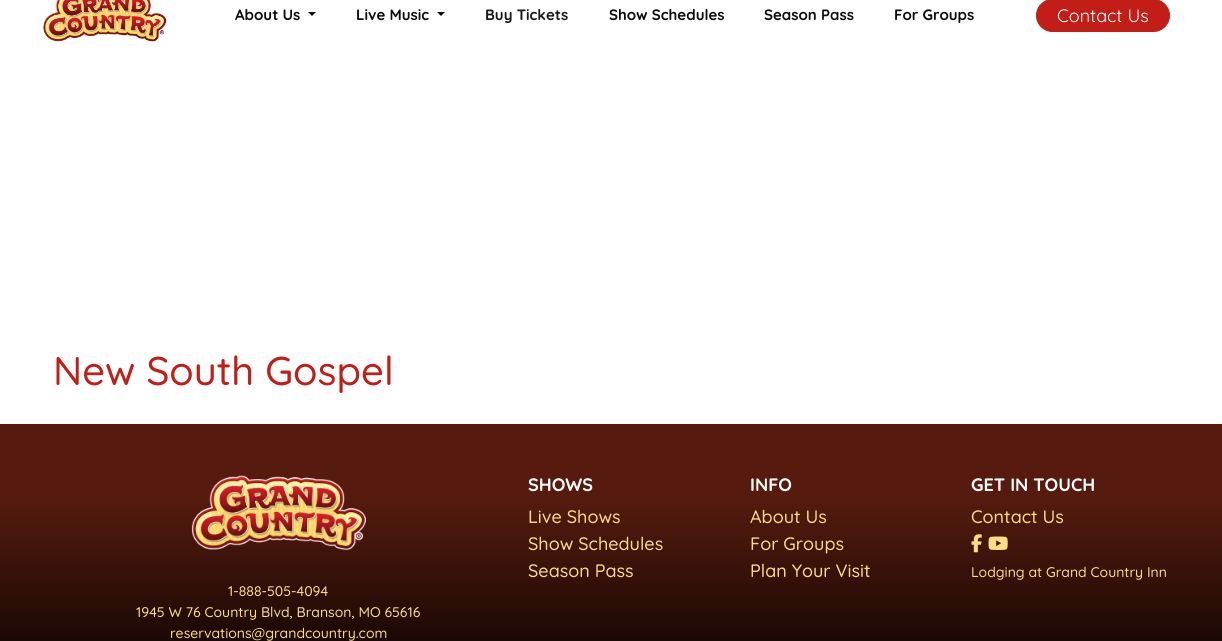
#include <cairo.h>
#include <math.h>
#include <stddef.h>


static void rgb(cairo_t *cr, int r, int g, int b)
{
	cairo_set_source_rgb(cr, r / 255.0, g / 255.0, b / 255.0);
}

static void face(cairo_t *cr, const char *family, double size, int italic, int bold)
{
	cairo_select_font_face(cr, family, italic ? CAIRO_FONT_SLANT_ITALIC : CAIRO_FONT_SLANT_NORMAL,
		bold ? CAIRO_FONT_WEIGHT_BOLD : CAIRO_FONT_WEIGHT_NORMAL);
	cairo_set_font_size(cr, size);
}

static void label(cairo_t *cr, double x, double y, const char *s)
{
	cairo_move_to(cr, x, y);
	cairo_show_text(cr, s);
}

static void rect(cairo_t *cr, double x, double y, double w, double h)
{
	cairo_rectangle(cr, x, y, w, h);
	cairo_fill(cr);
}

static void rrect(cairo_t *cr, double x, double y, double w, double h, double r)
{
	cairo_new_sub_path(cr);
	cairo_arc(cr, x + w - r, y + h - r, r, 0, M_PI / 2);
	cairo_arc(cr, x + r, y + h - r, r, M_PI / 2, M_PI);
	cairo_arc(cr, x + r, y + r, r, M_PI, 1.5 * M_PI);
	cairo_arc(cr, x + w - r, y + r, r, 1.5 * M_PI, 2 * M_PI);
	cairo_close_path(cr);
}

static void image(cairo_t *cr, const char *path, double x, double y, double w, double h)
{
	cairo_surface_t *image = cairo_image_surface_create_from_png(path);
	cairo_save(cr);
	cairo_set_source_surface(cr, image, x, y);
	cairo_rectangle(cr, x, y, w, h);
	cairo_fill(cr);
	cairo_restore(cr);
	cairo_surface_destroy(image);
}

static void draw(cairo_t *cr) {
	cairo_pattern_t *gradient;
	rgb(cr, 255, 255, 255);
	cairo_paint(cr);
	image(cr, "image0.png", 43, 0, 124, 42);
	face(cr, "Quicksand", 15, 0, 1);
	rgb(cr, 13, 13, 13);
	label(cr, 235, 20, "About Us");
	cairo_new_path(cr);
	cairo_move_to(cr, 308, 12);
	cairo_line_to(cr, 316, 12);
	cairo_line_to(cr, 312, 16);
	cairo_close_path(cr);
	cairo_fill(cr);
	label(cr, 356, 20, "Live Music");
	cairo_new_path(cr);
	cairo_move_to(cr, 437, 12);
	cairo_line_to(cr, 445, 12);
	cairo_line_to(cr, 441, 16);
	cairo_close_path(cr);
	cairo_fill(cr);
	rgb(cr, 26, 26, 26);
	label(cr, 485, 20, "Buy Tickets");
	rgb(cr, 13, 13, 13);
	label(cr, 609, 20, "Show Schedules");
	label(cr, 764, 20, "Season Pass");
	label(cr, 894, 20, "For Groups");
	rgb(cr, 194, 30, 23);
	rrect(cr, 1036.5, -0.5, 133, 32, 16);
	cairo_fill_preserve(cr);
	cairo_set_line_width(cr, 1);
	cairo_stroke(cr);
	face(cr, "Quicksand", 18, 0, 0);
	rgb(cr, 255, 255, 255);
	label(cr, 1057, 22, "Contact Us");
	face(cr, "Quicksand Medium", 40, 0, 0);
	rgb(cr, 194, 30, 23);
	label(cr, 53, 385, "New South Gospel");
	gradient = cairo_pattern_create_linear(611, 424, 611, 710);
	cairo_pattern_add_color_stop_rgba(gradient, 0.25, 0.337, 0.106, 0.055, 1);
	cairo_pattern_add_color_stop_rgba(gradient, 1, 0, 0, 0, 1);
	cairo_set_source(cr, gradient);
	cairo_pattern_destroy(gradient);
	rect(cr, 0, 424, 1222, 217);
	face(cr, "Quicksand", 18, 0, 1);
	rgb(cr, 255, 255, 255);
	label(cr, 528, 491, "SHOWS");
	face(cr, "Quicksand Medium", 18, 0, 0);
	rgb(cr, 249, 220, 132);
	label(cr, 528, 523, "Live Shows");
	label(cr, 528, 550, "Show Schedules");
	label(cr, 528, 577, "Season Pass");
	face(cr, "Quicksand", 18, 0, 1);
	rgb(cr, 255, 255, 255);
	label(cr, 750, 491, "INFO");
	face(cr, "Quicksand Medium", 18, 0, 0);
	rgb(cr, 249, 220, 132);
	label(cr, 750, 523, "About Us");
	label(cr, 750, 550, "For Groups");
	label(cr, 750, 577, "Plan Your Visit");
	face(cr, "Quicksand", 18, 0, 1);
	rgb(cr, 255, 255, 255);
	label(cr, 971, 491, "GET IN TOUCH");
	face(cr, "Quicksand Medium", 18, 0, 0);
	rgb(cr, 249, 220, 132);
	label(cr, 971, 523, "Contact Us");
	image(cr, "image1.png", 971, 534, 11, 19);
	image(cr, "image2.png", 988, 536, 20, 14);
	face(cr, "Quicksand Medium", 14, 0, 0);
	label(cr, 971, 577, "Lodging at Grand Country Inn");
	image(cr, "image3.png", 191, 475, 175, 76);
	label(cr, 228, 596, "1-888-505-4094");
	label(cr, 136, 617, "1945 W 76 Country Blvd, Branson, MO 65616");
	label(cr, 170, 638, "reservations@grandcountry.com");
}

int main(void) {
	cairo_surface_t *surface = cairo_image_surface_create(CAIRO_FORMAT_RGB24, 1222, 641);
	cairo_t *cr = cairo_create(surface);
	cairo_font_options_t *options = cairo_font_options_create();
	cairo_font_options_set_hint_metrics(options, CAIRO_HINT_METRICS_OFF);
	cairo_font_options_set_hint_style(options, CAIRO_HINT_STYLE_NONE);
	cairo_set_font_options(cr, options);
	cairo_set_miter_limit(cr, 4);
	draw(cr);
	cairo_surface_write_to_png(surface, "render.png");
	cairo_font_options_destroy(options);
	cairo_destroy(cr);
	cairo_surface_destroy(surface);
	return 0;
}
